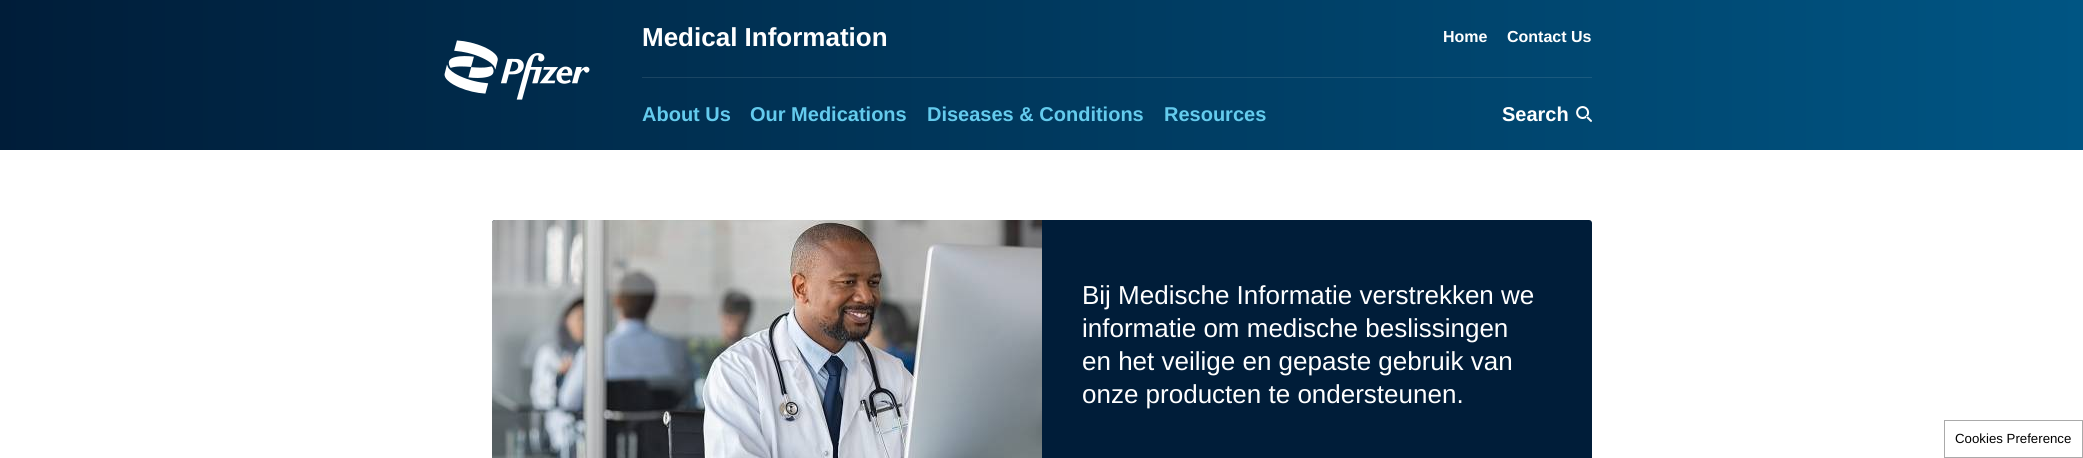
#include <cairo.h>
#include <math.h>
#include <stddef.h>


static void rgb(cairo_t *cr, int r, int g, int b)
{
	cairo_set_source_rgb(cr, r / 255.0, g / 255.0, b / 255.0);
}

static void face(cairo_t *cr, const char *family, double size, int italic, int bold)
{
	cairo_select_font_face(cr, family, italic ? CAIRO_FONT_SLANT_ITALIC : CAIRO_FONT_SLANT_NORMAL,
		bold ? CAIRO_FONT_WEIGHT_BOLD : CAIRO_FONT_WEIGHT_NORMAL);
	cairo_set_font_size(cr, size);
}

static void label(cairo_t *cr, double x, double y, const char *s)
{
	cairo_move_to(cr, x, y);
	cairo_show_text(cr, s);
}

static void rect(cairo_t *cr, double x, double y, double w, double h)
{
	cairo_rectangle(cr, x, y, w, h);
	cairo_fill(cr);
}

static void rrect(cairo_t *cr, double x, double y, double w, double h, double r)
{
	cairo_new_sub_path(cr);
	cairo_arc(cr, x + w - r, y + h - r, r, 0, M_PI / 2);
	cairo_arc(cr, x + r, y + h - r, r, M_PI / 2, M_PI);
	cairo_arc(cr, x + r, y + r, r, M_PI, 1.5 * M_PI);
	cairo_arc(cr, x + w - r, y + r, r, 1.5 * M_PI, 2 * M_PI);
	cairo_close_path(cr);
}

static void image(cairo_t *cr, const char *path, double x, double y, double w, double h)
{
	cairo_surface_t *image = cairo_image_surface_create_from_png(path);
	cairo_save(cr);
	cairo_set_source_surface(cr, image, x, y);
	cairo_rectangle(cr, x, y, w, h);
	cairo_fill(cr);
	cairo_restore(cr);
	cairo_surface_destroy(image);
}

static void draw(cairo_t *cr) {
	cairo_pattern_t *gradient;
	rgb(cr, 255, 255, 255);
	cairo_paint(cr);
	gradient = cairo_pattern_create_linear(0, 75, 2083, 75);
	cairo_pattern_add_color_stop_rgba(gradient, 0, 0, 0.114, 0.224, 1);
	cairo_pattern_add_color_stop_rgba(gradient, 1, 0, 0.333, 0.514, 1);
	cairo_set_source(cr, gradient);
	cairo_pattern_destroy(gradient);
	rect(cr, 0, 0, 2083, 150);
	gradient = cairo_pattern_create_linear(0, 75, 2083, 75);
	cairo_pattern_add_color_stop_rgba(gradient, 0, 0.102, 0.204, 0.302, 1);
	cairo_pattern_add_color_stop_rgba(gradient, 1, 0.102, 0.4, 0.561, 1);
	cairo_set_source(cr, gradient);
	cairo_pattern_destroy(gradient);
	rect(cr, 642, 77, 950, 1);
	face(cr, "Liberation Sans", 26, 0, 1);
	rgb(cr, 255, 255, 255);
	label(cr, 642, 46, "Medical Information");
	face(cr, "Liberation Sans", 16, 0, 1);
	label(cr, 1443, 42, "Home");
	label(cr, 1507, 42, "Contact Us");
	image(cr, "image0.png", 444, 40, 146, 60);
	face(cr, "Liberation Sans", 20, 0, 1);
	rgb(cr, 100, 203, 237);
	label(cr, 642, 121, "About Us");
	label(cr, 750, 121, "Our Medications");
	label(cr, 927, 121, "Diseases & Conditions");
	label(cr, 1164, 121, "Resources");
	rgb(cr, 255, 255, 255);
	label(cr, 1502, 121, "Search");
	image(cr, "image1.png", 1576, 106, 16, 16);
	rgb(cr, 0, 29, 57);
	rrect(cr, 492, 220, 1100, 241, 3);
	cairo_fill(cr);
	image(cr, "image2.png", 492, 220, 550, 238);
	face(cr, "Liberation Sans", 26, 0, 0);
	rgb(cr, 255, 255, 255);
	label(cr, 1082, 304, "Bij Medische Informatie verstrekken we");
	label(cr, 1082, 337, "informatie om medische beslissingen");
	label(cr, 1082, 370, "en het veilige en gepaste gebruik van");
	label(cr, 1082, 403, "onze producten te ondersteunen.");
	cairo_rectangle(cr, 1944.5, 420.5, 138, 37);
	rgb(cr, 170, 170, 170);
	cairo_set_line_width(cr, 1);
	cairo_stroke(cr);
	face(cr, "Liberation Sans", 13.25, 0, 0);
	rgb(cr, 0, 0, 0);
	label(cr, 1955, 443, "Cookies Preference");
}

int main(void) {
	cairo_surface_t *surface = cairo_image_surface_create(CAIRO_FORMAT_RGB24, 2083, 458);
	cairo_t *cr = cairo_create(surface);
	cairo_font_options_t *options = cairo_font_options_create();
	cairo_font_options_set_hint_metrics(options, CAIRO_HINT_METRICS_OFF);
	cairo_font_options_set_hint_style(options, CAIRO_HINT_STYLE_NONE);
	cairo_set_font_options(cr, options);
	cairo_set_miter_limit(cr, 4);
	draw(cr);
	cairo_surface_write_to_png(surface, "render.png");
	cairo_font_options_destroy(options);
	cairo_destroy(cr);
	cairo_surface_destroy(surface);
	return 0;
}
